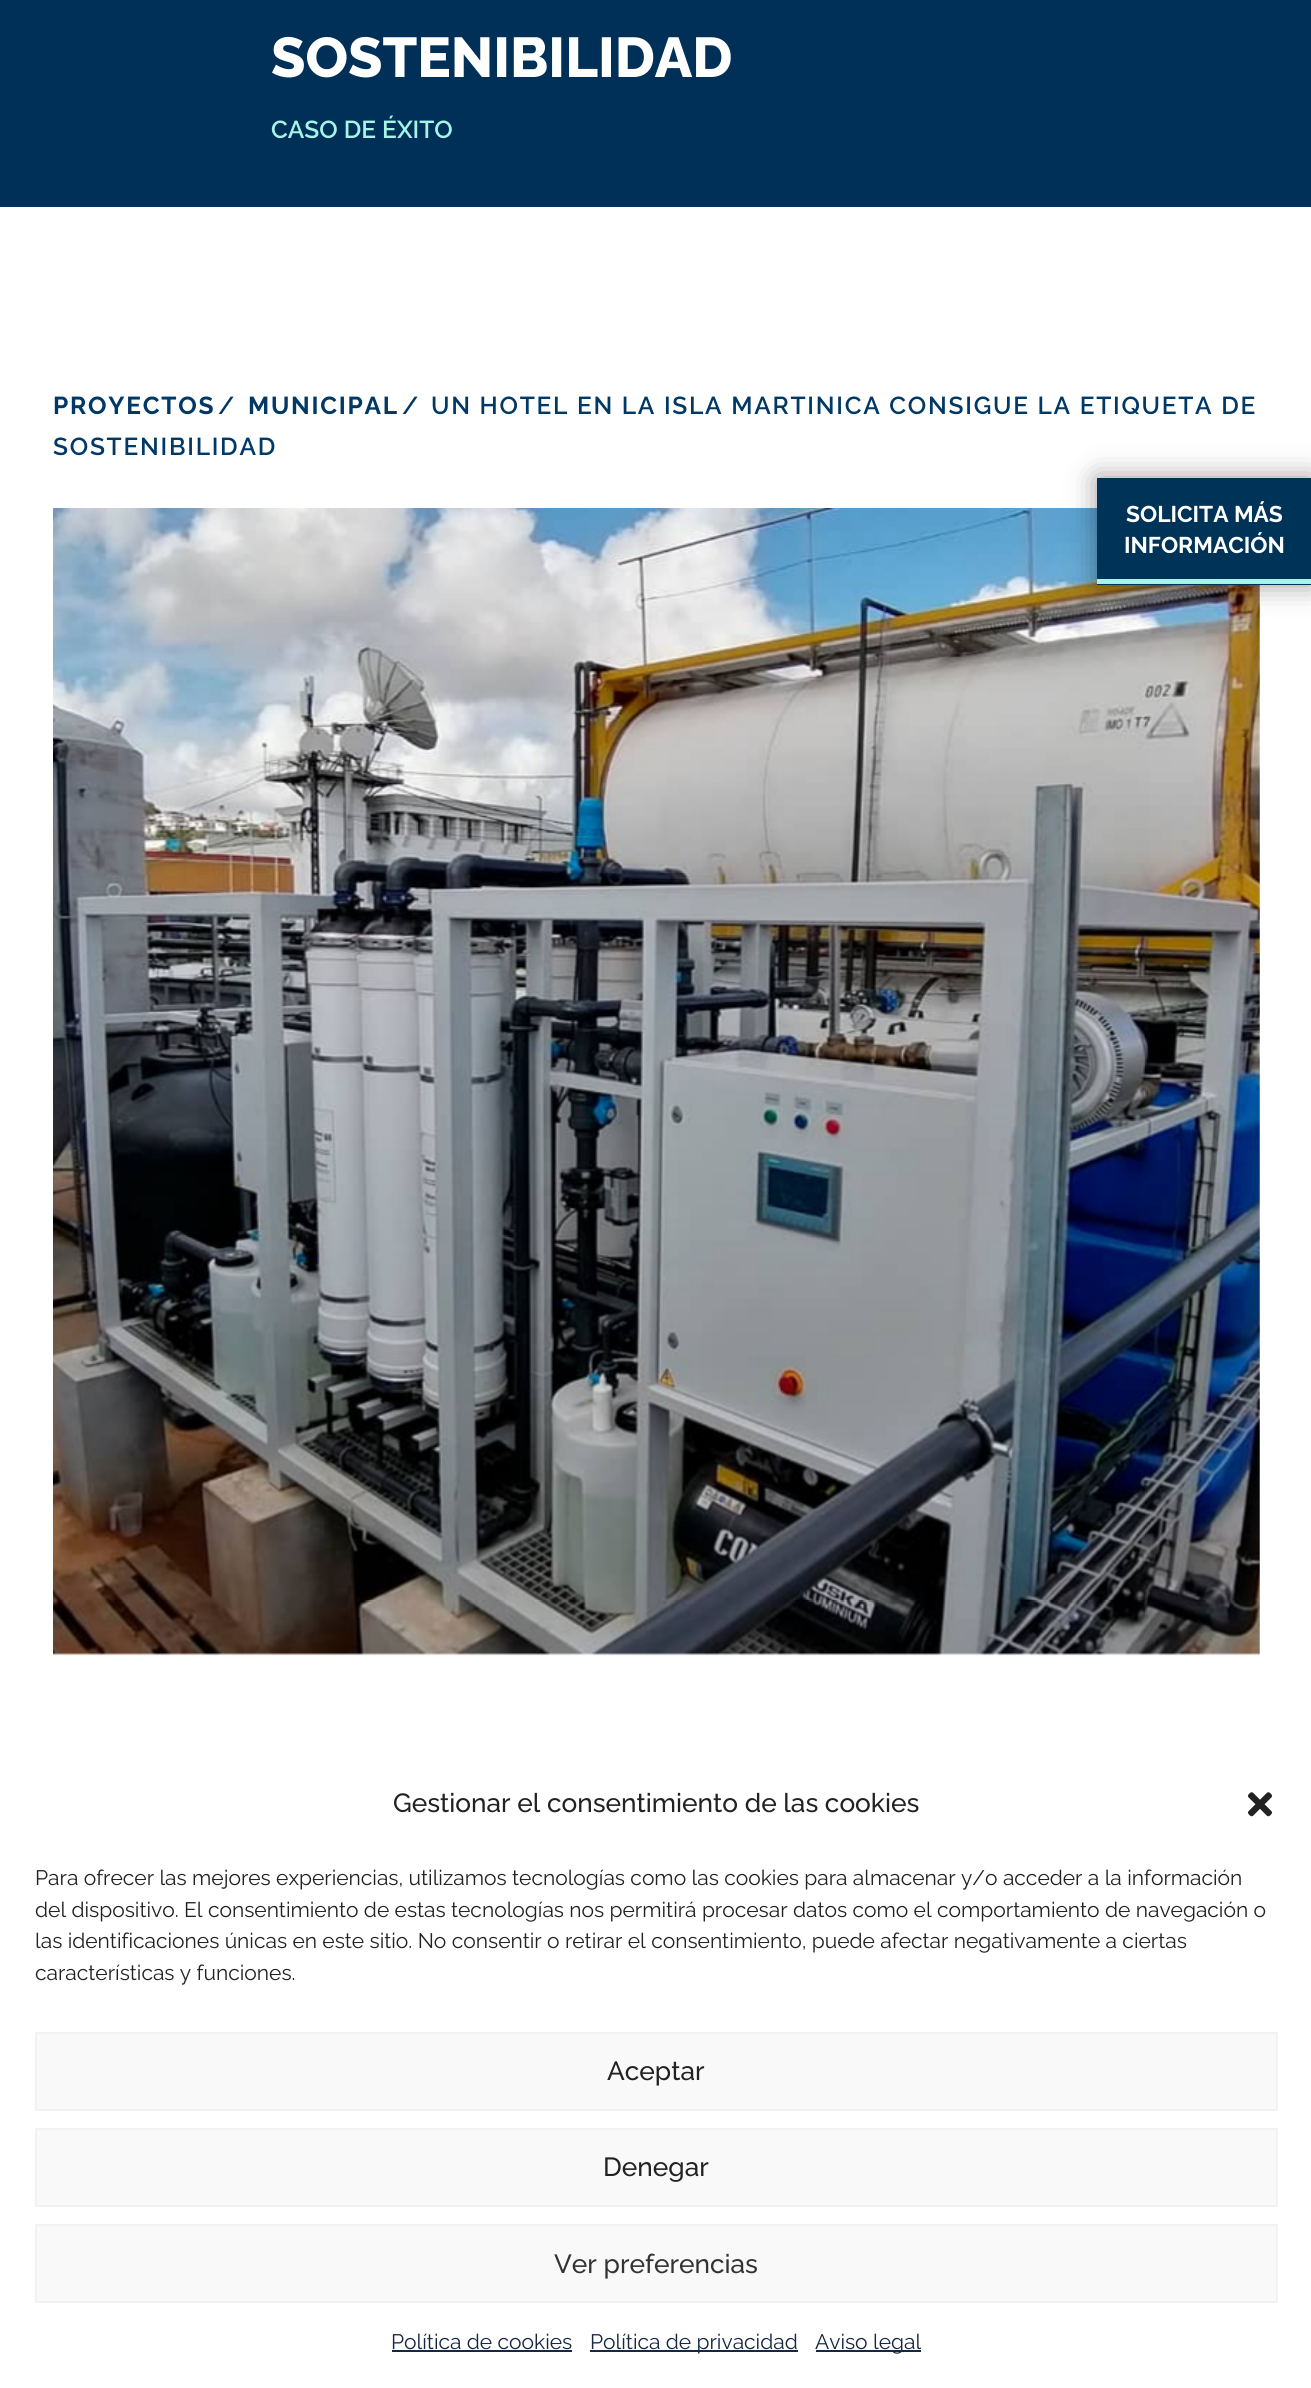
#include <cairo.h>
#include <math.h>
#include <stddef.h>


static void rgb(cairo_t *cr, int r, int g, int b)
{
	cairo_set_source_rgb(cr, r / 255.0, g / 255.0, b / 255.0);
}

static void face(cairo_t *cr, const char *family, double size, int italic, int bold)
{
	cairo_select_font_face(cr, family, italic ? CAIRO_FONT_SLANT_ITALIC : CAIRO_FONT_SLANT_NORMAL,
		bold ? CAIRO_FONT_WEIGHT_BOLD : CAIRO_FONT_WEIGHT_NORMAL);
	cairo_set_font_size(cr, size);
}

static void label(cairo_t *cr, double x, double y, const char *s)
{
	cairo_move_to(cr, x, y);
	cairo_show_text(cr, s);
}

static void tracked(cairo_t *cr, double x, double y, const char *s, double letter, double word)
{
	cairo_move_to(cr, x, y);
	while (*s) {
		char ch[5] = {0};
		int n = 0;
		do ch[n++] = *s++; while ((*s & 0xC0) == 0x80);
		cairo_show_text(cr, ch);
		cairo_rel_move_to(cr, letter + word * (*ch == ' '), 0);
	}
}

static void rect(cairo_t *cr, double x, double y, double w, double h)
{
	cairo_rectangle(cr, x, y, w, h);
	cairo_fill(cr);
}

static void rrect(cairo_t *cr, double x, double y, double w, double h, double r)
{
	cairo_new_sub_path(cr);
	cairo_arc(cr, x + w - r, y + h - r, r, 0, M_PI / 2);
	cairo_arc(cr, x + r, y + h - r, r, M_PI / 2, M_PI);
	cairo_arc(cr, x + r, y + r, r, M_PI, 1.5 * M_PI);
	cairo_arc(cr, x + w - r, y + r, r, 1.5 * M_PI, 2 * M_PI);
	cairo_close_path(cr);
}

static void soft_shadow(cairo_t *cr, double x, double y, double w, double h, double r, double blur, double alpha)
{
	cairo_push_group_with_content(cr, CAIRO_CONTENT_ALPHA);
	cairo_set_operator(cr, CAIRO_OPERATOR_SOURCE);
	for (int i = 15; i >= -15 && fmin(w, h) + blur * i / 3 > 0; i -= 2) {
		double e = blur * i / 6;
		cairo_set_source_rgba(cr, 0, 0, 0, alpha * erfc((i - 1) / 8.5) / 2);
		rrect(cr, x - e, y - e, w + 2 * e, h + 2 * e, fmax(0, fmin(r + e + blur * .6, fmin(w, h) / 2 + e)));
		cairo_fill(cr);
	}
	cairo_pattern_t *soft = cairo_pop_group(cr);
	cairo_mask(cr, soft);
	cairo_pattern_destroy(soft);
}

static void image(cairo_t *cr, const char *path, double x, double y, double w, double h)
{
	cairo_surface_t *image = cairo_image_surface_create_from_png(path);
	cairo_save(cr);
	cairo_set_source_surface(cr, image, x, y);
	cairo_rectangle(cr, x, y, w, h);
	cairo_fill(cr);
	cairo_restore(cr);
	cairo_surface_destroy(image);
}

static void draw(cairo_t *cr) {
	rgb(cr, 255, 255, 255);
	cairo_paint(cr);
	rgb(cr, 0, 48, 87);
	rect(cr, 0, 0, 1311, 207);
	face(cr, "Raleway ExtraBold", 56, 0, 0);
	rgb(cr, 255, 255, 255);
	label(cr, 271, 77, "SOSTENIBILIDAD");
	face(cr, "Raleway SemiBold", 24.5, 0, 0);
	rgb(cr, 166, 244, 231);
	label(cr, 271, 138, "CASO DE ÉXITO");
	face(cr, "Raleway", 24.5, 0, 1);
	rgb(cr, 0, 56, 102);
	tracked(cr, 53, 414, "PROYECTOS", 1.75, 0);
	face(cr, "Raleway SemiBold", 24.5, 0, 0);
	tracked(cr, 218, 414, "/", 1.75, 0);
	face(cr, "Raleway", 24.5, 0, 1);
	tracked(cr, 248, 414, "MUNICIPAL", 1.75, 0);
	face(cr, "Raleway SemiBold", 24.5, 0, 0);
	tracked(cr, 402, 414, "/", 1.75, 0);
	tracked(cr, 431, 414, "UN HOTEL EN LA ISLA MARTINICA CONSIGUE LA ETIQUETA DE", 1.75, 0);
	tracked(cr, 53, 455, "SOSTENIBILIDAD", 1.75, 0);
	image(cr, "image0.png", 53, 508, 1207, 1148);
	rgb(cr, 0, 0, 0);
	soft_shadow(cr, 1097, 478, 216, 107, 0, 14, 0.4);
	rgb(cr, 0, 51, 88);
	rect(cr, 1097, 478, 214, 107);
	rgb(cr, 166, 244, 231);
	rect(cr, 1097, 579, 214, 5);
	face(cr, "Raleway", 22.75, 0, 1);
	rgb(cr, 255, 255, 255);
	label(cr, 1126, 522, "SOLICITA MÁS");
	label(cr, 1124, 553, "INFORMACIÓN");
	face(cr, "Raleway Medium", 26.25, 0, 0);
	rgb(cr, 34, 34, 34);
	label(cr, 393, 1812, "Gestionar el consentimiento de las cookies");
	image(cr, "image1.png", 1248, 1792, 24, 25);
	face(cr, "Raleway", 21, 0, 0);
	label(cr, 35, 1885, "Para ofrecer las mejores experiencias, utilizamos tecnologías como las cookies para almacenar y/o acceder a la información");
	label(cr, 35, 1917, "del dispositivo. El consentimiento de estas tecnologías nos permitirá procesar datos como el comportamiento de navegación o");
	label(cr, 35, 1948, "las identificaciones únicas en este sitio. No consentir o retirar el consentimiento, puede afectar negativamente a ciertas");
	label(cr, 35, 1980, "características y funciones.");
	rgb(cr, 249, 249, 249);
	cairo_rectangle(cr, 36, 2033, 1241, 77);
	cairo_fill_preserve(cr);
	rgb(cr, 242, 242, 242);
	cairo_stroke(cr);
	face(cr, "Raleway Medium", 26.25, 0, 0);
	rgb(cr, 34, 34, 34);
	label(cr, 607, 2080, "Aceptar");
	rgb(cr, 249, 249, 249);
	cairo_rectangle(cr, 36, 2129, 1241, 77);
	cairo_fill_preserve(cr);
	rgb(cr, 242, 242, 242);
	cairo_stroke(cr);
	rgb(cr, 34, 34, 34);
	label(cr, 603, 2176, "Denegar");
	rgb(cr, 249, 249, 249);
	cairo_rectangle(cr, 36, 2225, 1241, 77);
	cairo_fill_preserve(cr);
	rgb(cr, 242, 242, 242);
	cairo_stroke(cr);
	rgb(cr, 51, 51, 51);
	label(cr, 554, 2273, "Ver preferencias");
	face(cr, "Raleway", 21, 0, 0);
	rgb(cr, 20, 39, 69);
	label(cr, 391, 2349, "Política de cookies");
	rect(cr, 392, 2350, 180, 2);
	rect(cr, 590, 2350, 208, 2);
	label(cr, 590, 2349, "Política de privacidad");
	rect(cr, 816, 2350, 105, 2);
	label(cr, 815, 2349, "Aviso legal");
}

int main(void) {
	cairo_surface_t *surface = cairo_image_surface_create(CAIRO_FORMAT_RGB24, 1311, 2388);
	cairo_t *cr = cairo_create(surface);
	cairo_font_options_t *options = cairo_font_options_create();
	cairo_font_options_set_hint_metrics(options, CAIRO_HINT_METRICS_OFF);
	cairo_font_options_set_hint_style(options, CAIRO_HINT_STYLE_NONE);
	cairo_set_font_options(cr, options);
	cairo_set_miter_limit(cr, 4);
	draw(cr);
	cairo_surface_write_to_png(surface, "render.png");
	cairo_font_options_destroy(options);
	cairo_destroy(cr);
	cairo_surface_destroy(surface);
	return 0;
}
